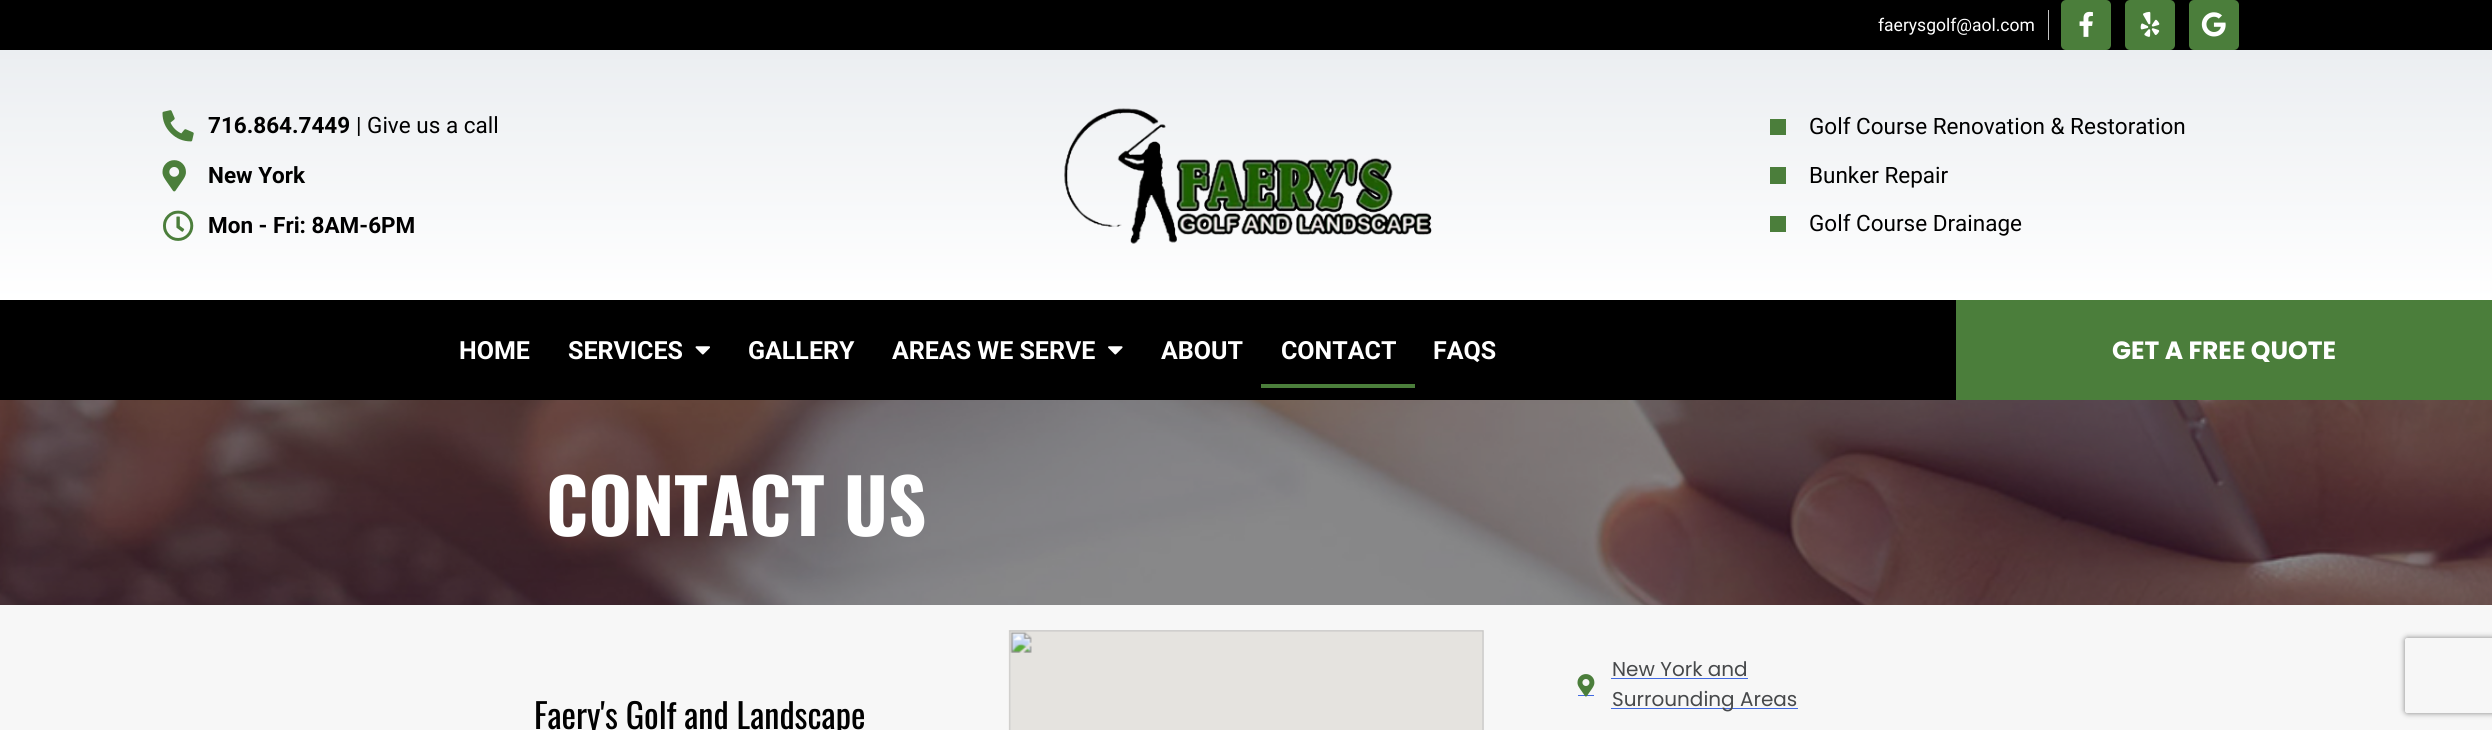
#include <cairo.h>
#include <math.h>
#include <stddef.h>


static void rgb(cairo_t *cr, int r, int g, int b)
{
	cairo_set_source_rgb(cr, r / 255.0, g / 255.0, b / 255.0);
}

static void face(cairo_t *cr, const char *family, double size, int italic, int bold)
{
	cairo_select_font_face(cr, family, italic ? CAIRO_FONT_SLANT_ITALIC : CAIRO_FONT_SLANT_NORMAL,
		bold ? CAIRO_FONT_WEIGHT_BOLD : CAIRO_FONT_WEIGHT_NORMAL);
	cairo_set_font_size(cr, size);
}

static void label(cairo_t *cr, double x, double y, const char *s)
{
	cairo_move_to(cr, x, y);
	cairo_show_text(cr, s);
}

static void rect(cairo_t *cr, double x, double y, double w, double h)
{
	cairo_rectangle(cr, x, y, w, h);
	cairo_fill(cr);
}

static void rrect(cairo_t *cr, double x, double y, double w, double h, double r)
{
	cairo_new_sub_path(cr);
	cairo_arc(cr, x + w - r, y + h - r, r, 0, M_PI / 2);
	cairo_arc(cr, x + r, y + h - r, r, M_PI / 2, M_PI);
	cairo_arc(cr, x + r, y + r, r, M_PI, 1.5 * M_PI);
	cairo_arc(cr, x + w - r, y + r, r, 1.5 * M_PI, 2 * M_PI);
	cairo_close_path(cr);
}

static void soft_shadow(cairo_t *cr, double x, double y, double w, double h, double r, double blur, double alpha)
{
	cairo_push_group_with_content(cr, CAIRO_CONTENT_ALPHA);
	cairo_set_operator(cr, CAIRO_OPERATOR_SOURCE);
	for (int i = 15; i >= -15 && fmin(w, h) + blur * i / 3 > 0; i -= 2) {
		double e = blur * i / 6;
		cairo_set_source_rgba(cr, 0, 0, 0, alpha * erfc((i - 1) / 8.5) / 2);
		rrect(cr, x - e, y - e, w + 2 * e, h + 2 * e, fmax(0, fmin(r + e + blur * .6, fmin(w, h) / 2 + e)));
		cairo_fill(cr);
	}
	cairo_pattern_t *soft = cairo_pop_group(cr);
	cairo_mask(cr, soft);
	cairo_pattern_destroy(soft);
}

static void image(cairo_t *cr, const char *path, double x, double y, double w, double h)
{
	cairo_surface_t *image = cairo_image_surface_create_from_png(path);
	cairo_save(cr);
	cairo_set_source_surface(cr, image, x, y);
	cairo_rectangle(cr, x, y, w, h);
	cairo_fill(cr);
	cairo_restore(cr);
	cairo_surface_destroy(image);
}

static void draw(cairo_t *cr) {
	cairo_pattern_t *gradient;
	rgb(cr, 0, 0, 0);
	cairo_paint(cr);
	rgb(cr, 196, 196, 196);
	rect(cr, 2048, 10, 1, 30);
	face(cr, "Roboto", 17.5, 0, 0);
	rgb(cr, 255, 255, 255);
	label(cr, 1878, 31, "faerysgolf@aol.com");
	rgb(cr, 75, 126, 59);
	rrect(cr, 2061, 0, 50, 50, 5);
	cairo_fill(cr);
	image(cr, "image0.png", 2079, 11, 14, 26);
	rrect(cr, 2125, 0, 50, 50, 5);
	cairo_fill(cr);
	image(cr, "image1.png", 2140, 11, 20, 26);
	rrect(cr, 2189, 0, 50, 50, 5);
	cairo_fill(cr);
	image(cr, "image2.png", 2201, 12, 25, 25);
	gradient = cairo_pattern_create_linear(1246, 50, 1246, 300);
	cairo_pattern_add_color_stop_rgba(gradient, 0, 0.922, 0.933, 0.945, 1);
	cairo_pattern_add_color_stop_rgba(gradient, 1, 1, 1, 1, 1);
	cairo_set_source(cr, gradient);
	cairo_pattern_destroy(gradient);
	rect(cr, 0, 50, 2492, 250);
	image(cr, "image3.png", 162, 110, 32, 32);
	face(cr, "Roboto", 22.5, 0, 1);
	rgb(cr, 0, 0, 0);
	label(cr, 208, 133, "716.864.7449");
	face(cr, "Roboto", 22.5, 0, 0);
	label(cr, 356, 133, "| Give us a call");
	image(cr, "image4.png", 162, 160, 24, 32);
	face(cr, "Roboto", 22.5, 0, 1);
	label(cr, 208, 183, "New York");
	image(cr, "image5.png", 163, 210, 31, 31);
	label(cr, 208, 233, "Mon - Fri: 8AM-6PM");
	image(cr, "image6.png", 1064, 108, 368, 136);
	rgb(cr, 75, 126, 59);
	rect(cr, 1770, 119, 16, 16);
	face(cr, "Roboto", 22.5, 0, 0);
	rgb(cr, 0, 0, 0);
	label(cr, 1809, 134, "Golf Course Renovation & Restoration");
	rgb(cr, 75, 126, 59);
	rect(cr, 1770, 167, 16, 17);
	rgb(cr, 0, 0, 0);
	label(cr, 1809, 183, "Bunker Repair");
	rgb(cr, 75, 126, 59);
	rect(cr, 1770, 216, 16, 16);
	rgb(cr, 0, 0, 0);
	label(cr, 1809, 231, "Golf Course Drainage");
	face(cr, "Roboto", 25, 0, 1);
	rgb(cr, 255, 255, 255);
	label(cr, 459, 359, "HOME");
	label(cr, 568, 359, "SERVICES");
	image(cr, "image7.png", 695, 346, 15, 9);
	label(cr, 748, 359, "GALLERY");
	label(cr, 892, 359, "AREAS WE SERVE");
	image(cr, "image8.png", 1108, 346, 15, 9);
	label(cr, 1161, 359, "ABOUT");
	label(cr, 1281, 359, "CONTACT");
	rgb(cr, 75, 126, 59);
	rect(cr, 1261, 384, 154, 4);
	rgb(cr, 255, 255, 255);
	label(cr, 1433, 359, "FAQS");
	rgb(cr, 75, 126, 59);
	rect(cr, 1956, 300, 536, 100);
	face(cr, "Poppins", 25, 0, 1);
	rgb(cr, 255, 255, 255);
	label(cr, 2112, 359, "GET A FREE QUOTE");
	image(cr, "image9.png", 0, 400, 2492, 205);
	face(cr, "Oswald", 75, 0, 1);
	label(cr, 546, 536, "CONTACT US");
	rgb(cr, 247, 247, 247);
	rect(cr, 0, 605, 2492, 125);
	image(cr, "image10.png", 1008, 630, 476, 100);
	rgb(cr, 65, 105, 225);
	rect(cr, 1578, 695, 16, 1);
	image(cr, "image11.png", 1577, 674, 18, 23);
	face(cr, "Poppins", 20, 0, 0);
	rgb(cr, 71, 73, 75);
	label(cr, 1612, 676, "New York and");
	rgb(cr, 65, 105, 225);
	rect(cr, 1611, 678, 137, 1);
	rect(cr, 1611, 708, 187, 1);
	rgb(cr, 71, 73, 75);
	label(cr, 1612, 706, "Surrounding Areas");
	face(cr, "Oswald", 34.4, 0, 0);
	rgb(cr, 0, 0, 0);
	label(cr, 534, 729, "Faery's Golf and Landscape");
	cairo_save(cr);
	cairo_set_fill_rule(cr, CAIRO_FILL_RULE_EVEN_ODD);
	cairo_new_path(cr);
	cairo_move_to(cr, 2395, 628);
	cairo_line_to(cr, 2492, 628);
	cairo_line_to(cr, 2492, 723);
	cairo_line_to(cr, 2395, 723);
	cairo_close_path(cr);
	cairo_move_to(cr, 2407.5, 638);
	cairo_line_to(cr, 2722.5, 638);
	cairo_curve_to(cr, 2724, 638, 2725, 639, 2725, 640.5);
	cairo_line_to(cr, 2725, 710.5);
	cairo_curve_to(cr, 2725, 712, 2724, 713, 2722.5, 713);
	cairo_line_to(cr, 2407.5, 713);
	cairo_curve_to(cr, 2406, 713, 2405, 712, 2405, 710.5);
	cairo_line_to(cr, 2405, 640.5);
	cairo_curve_to(cr, 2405, 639, 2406, 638, 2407.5, 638);
	cairo_close_path(cr);
	cairo_clip(cr);
	rgb(cr, 128, 128, 128);
	soft_shadow(cr, 2405, 638, 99, 75, 2.5, 3, 1);
	cairo_restore(cr);
}

int main(void) {
	cairo_surface_t *surface = cairo_image_surface_create(CAIRO_FORMAT_RGB24, 2492, 730);
	cairo_t *cr = cairo_create(surface);
	cairo_font_options_t *options = cairo_font_options_create();
	cairo_font_options_set_hint_metrics(options, CAIRO_HINT_METRICS_OFF);
	cairo_font_options_set_hint_style(options, CAIRO_HINT_STYLE_NONE);
	cairo_set_font_options(cr, options);
	cairo_set_miter_limit(cr, 4);
	draw(cr);
	cairo_surface_write_to_png(surface, "render.png");
	cairo_font_options_destroy(options);
	cairo_destroy(cr);
	cairo_surface_destroy(surface);
	return 0;
}
